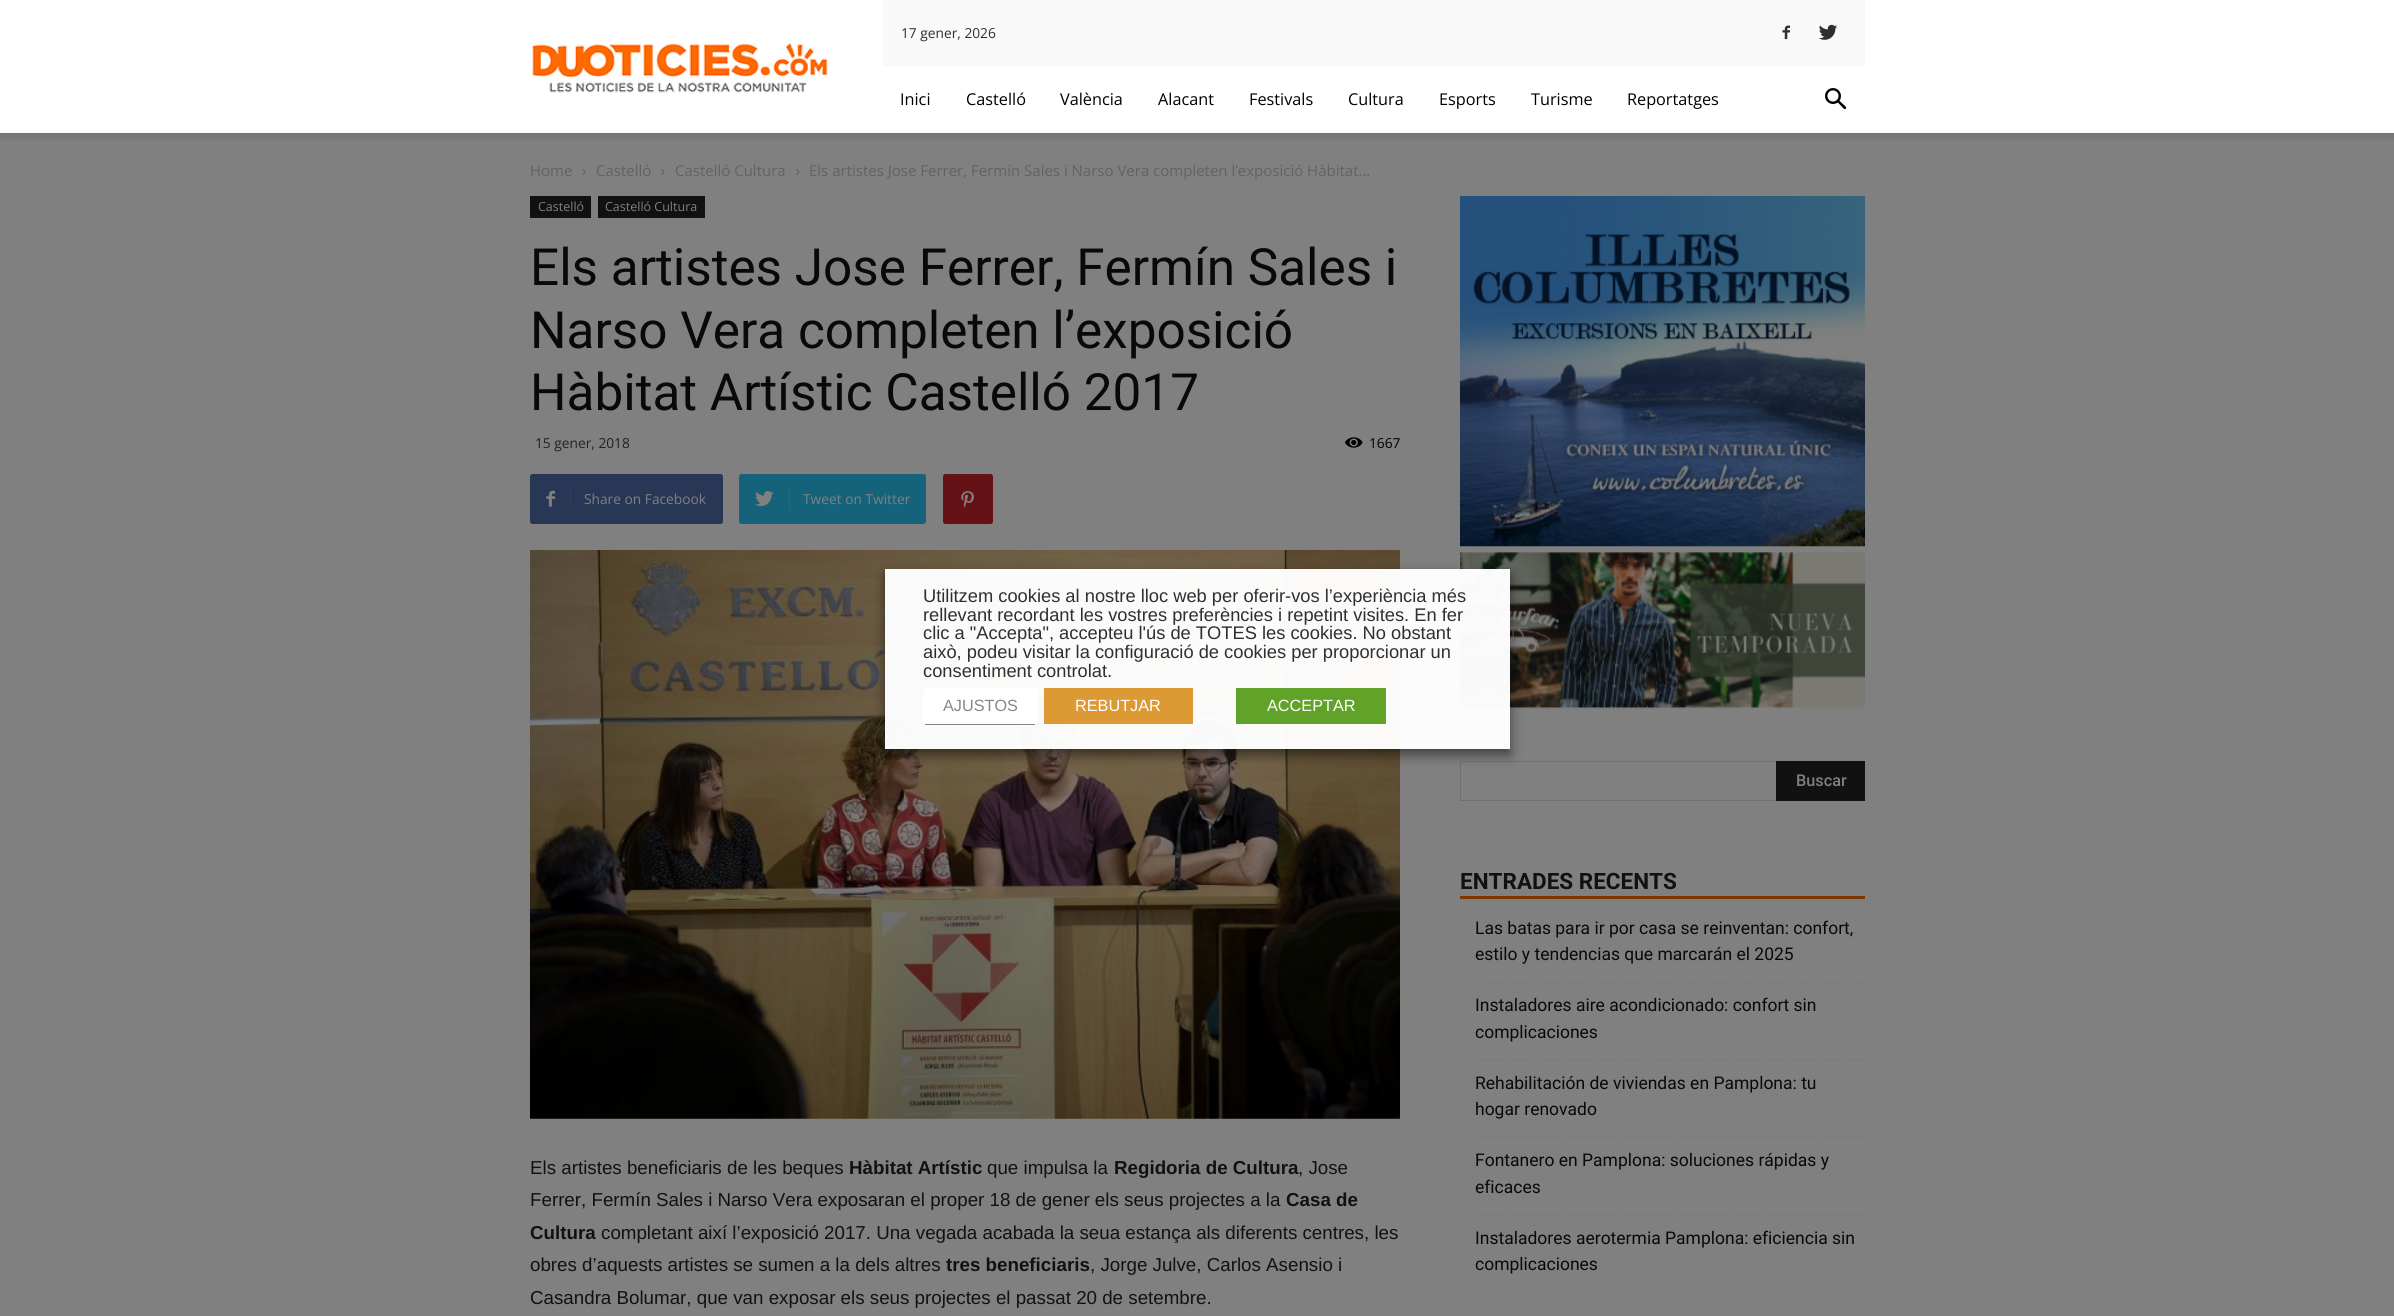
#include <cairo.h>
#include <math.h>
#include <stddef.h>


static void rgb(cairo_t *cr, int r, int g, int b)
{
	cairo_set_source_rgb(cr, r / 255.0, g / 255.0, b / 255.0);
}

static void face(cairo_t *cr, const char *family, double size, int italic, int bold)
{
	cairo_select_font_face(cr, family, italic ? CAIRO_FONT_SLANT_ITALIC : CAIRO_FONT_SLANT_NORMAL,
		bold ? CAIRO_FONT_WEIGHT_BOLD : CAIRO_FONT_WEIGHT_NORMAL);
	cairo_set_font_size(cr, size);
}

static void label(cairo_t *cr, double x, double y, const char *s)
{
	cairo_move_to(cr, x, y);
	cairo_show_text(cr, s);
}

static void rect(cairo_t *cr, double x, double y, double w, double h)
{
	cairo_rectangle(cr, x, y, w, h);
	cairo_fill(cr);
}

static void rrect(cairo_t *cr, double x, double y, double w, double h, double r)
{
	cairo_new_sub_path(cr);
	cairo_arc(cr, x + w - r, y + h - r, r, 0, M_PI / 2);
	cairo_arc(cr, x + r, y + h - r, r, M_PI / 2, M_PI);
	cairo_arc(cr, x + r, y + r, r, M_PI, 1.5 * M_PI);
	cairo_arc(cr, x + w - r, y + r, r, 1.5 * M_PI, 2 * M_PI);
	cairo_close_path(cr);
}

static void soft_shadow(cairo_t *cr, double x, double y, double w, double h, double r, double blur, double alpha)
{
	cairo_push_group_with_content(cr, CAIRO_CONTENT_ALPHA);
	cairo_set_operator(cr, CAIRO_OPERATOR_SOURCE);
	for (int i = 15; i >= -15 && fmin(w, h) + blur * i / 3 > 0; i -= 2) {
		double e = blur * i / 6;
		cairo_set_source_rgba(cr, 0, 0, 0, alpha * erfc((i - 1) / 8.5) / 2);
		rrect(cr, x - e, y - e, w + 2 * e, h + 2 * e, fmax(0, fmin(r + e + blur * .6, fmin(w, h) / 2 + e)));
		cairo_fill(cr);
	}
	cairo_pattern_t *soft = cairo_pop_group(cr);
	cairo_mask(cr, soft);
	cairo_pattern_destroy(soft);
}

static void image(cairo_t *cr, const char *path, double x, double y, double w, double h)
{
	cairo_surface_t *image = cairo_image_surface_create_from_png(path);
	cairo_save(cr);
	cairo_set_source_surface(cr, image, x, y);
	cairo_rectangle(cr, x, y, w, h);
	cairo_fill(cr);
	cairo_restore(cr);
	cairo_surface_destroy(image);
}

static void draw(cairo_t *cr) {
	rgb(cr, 128, 128, 128);
	cairo_paint(cr);
	rgb(cr, 255, 255, 255);
	rect(cr, 0, 0, 2394, 133);
	rgb(cr, 249, 249, 249);
	rect(cr, 883, 0, 982, 66);
	face(cr, "Open Sans", 13.75, 0, 0);
	rgb(cr, 47, 47, 47);
	label(cr, 901, 38, "17 gener, 2026");
	image(cr, "image0.png", 1782, 25, 8, 15);
	image(cr, "image1.png", 1819, 24, 18, 16);
	image(cr, "image2.png", 532, 43, 296, 50);
	face(cr, "Open Sans", 16.25, 0, 0);
	rgb(cr, 0, 0, 0);
	label(cr, 900, 105, "Inici");
	label(cr, 966, 105, "Castelló");
	label(cr, 1060, 105, "València");
	label(cr, 1158, 105, "Alacant");
	label(cr, 1249, 105, "Festivals");
	label(cr, 1348, 105, "Cultura");
	label(cr, 1439, 105, "Esports");
	label(cr, 1531, 105, "Turisme");
	label(cr, 1627, 105, "Reportatges");
	image(cr, "image3.png", 1825, 88, 22, 22);
	image(cr, "image4.png", 0, 132, 2394, 8);
	face(cr, "Open Sans", 15, 0, 0);
	rgb(cr, 98, 98, 98);
	label(cr, 530, 176, "Home");
	image(cr, "image5.png", 582, 169, 4, 6);
	label(cr, 596, 176, "Castelló");
	image(cr, "image6.png", 661, 169, 4, 6);
	label(cr, 675, 176, "Castelló Cultura");
	image(cr, "image6.png", 796, 169, 4, 6);
	label(cr, 809, 176, "Els artistes Jose Ferrer, Fermín Sales i Narso Vera completen l’exposició Hàbitat...");
	rgb(cr, 17, 17, 17);
	rect(cr, 530, 196, 61, 22);
	face(cr, "Open Sans", 12.5, 0, 0);
	rgb(cr, 128, 128, 128);
	label(cr, 538, 211, "Castelló");
	rgb(cr, 17, 17, 17);
	rect(cr, 598, 196, 107, 22);
	rgb(cr, 128, 128, 128);
	label(cr, 605, 211, "Castelló Cultura");
	face(cr, "Roboto", 51.25, 0, 0);
	rgb(cr, 9, 9, 9);
	label(cr, 530, 285, "Els artistes Jose Ferrer, Fermín Sales i");
	label(cr, 530, 348, "Narso Vera completen l’exposició");
	label(cr, 530, 410, "Hàbitat Artístic Castelló 2017");
	face(cr, "Open Sans", 13.75, 0, 0);
	rgb(cr, 34, 34, 34);
	label(cr, 535, 448, "15 gener, 2018");
	image(cr, "image7.png", 1345, 437, 18, 11);
	rgb(cr, 0, 0, 0);
	label(cr, 1369, 448, "1667");
	rgb(cr, 41, 55, 86);
	rrect(cr, 530, 474, 193, 50, 2.5);
	cairo_fill(cr);
	image(cr, "image8.png", 546, 490, 9, 17);
	rgb(cr, 49, 63, 90);
	rect(cr, 570, 489, 1, 20);
	rgb(cr, 128, 128, 128);
	label(cr, 584, 504, "Share on Facebook");
	rgb(cr, 21, 99, 123);
	rrect(cr, 739, 474, 187, 50, 2.5);
	cairo_fill(cr);
	image(cr, "image9.png", 755, 491, 19, 16);
	rgb(cr, 42, 105, 124);
	rect(cr, 789, 489, 1, 20);
	rgb(cr, 128, 128, 128);
	label(cr, 803, 504, "Tweet on Twitter");
	rgb(cr, 101, 17, 21);
	rrect(cr, 943, 474, 50, 50, 2.5);
	cairo_fill(cr);
	image(cr, "image10.png", 961, 491, 13, 17);
	image(cr, "image11.png", 530, 550, 870, 569);
	face(cr, "Liberation Sans", 18.75, 0, 0);
	rgb(cr, 17, 17, 17);
	label(cr, 530, 1174, "Els artistes beneficiaris de les beques");
	face(cr, "Liberation Sans", 18.75, 0, 1);
	label(cr, 849, 1174, "Hàbitat Artístic");
	face(cr, "Liberation Sans", 18.75, 0, 0);
	label(cr, 987, 1174, "que impulsa la");
	face(cr, "Liberation Sans", 18.75, 0, 1);
	label(cr, 1114, 1174, "Regidoria de Cultura");
	face(cr, "Liberation Sans", 18.75, 0, 0);
	label(cr, 1298, 1174, ", Jose");
	label(cr, 530, 1206, "Ferrer, Fermín Sales i Narso Vera exposaran el proper 18 de gener els seus projectes a la");
	face(cr, "Liberation Sans", 18.75, 0, 1);
	label(cr, 1286, 1206, "Casa de");
	label(cr, 530, 1239, "Cultura");
	face(cr, "Liberation Sans", 18.75, 0, 0);
	label(cr, 601, 1239, "completant així l’exposició 2017. Una vegada acabada la seua estança als diferents centres, les");
	label(cr, 530, 1271, "obres d’aquests artistes se sumen a la dels altres");
	face(cr, "Liberation Sans", 18.75, 0, 1);
	label(cr, 946, 1271, "tres beneficiaris");
	face(cr, "Liberation Sans", 18.75, 0, 0);
	label(cr, 1090, 1271, ", Jorge Julve, Carlos Asensio i");
	label(cr, 530, 1304, "Casandra Bolumar, que van exposar els seus projectes el passat 20 de setembre.");
	image(cr, "image12.png", 1460, 196, 405, 351);
	image(cr, "image13.png", 1460, 552, 405, 157);
	rgb(cr, 113, 113, 113);
	rect(cr, 1460, 761, 316, 1);
	rect(cr, 1460, 800, 316, 1);
	rect(cr, 1460, 761, 1, 40);
	rgb(cr, 17, 17, 17);
	rect(cr, 1776, 761, 89, 40);
	face(cr, "Roboto Medium", 16.25, 0, 0);
	rgb(cr, 128, 128, 128);
	label(cr, 1796, 786, "Buscar");
	rgb(cr, 127, 53, 0);
	rect(cr, 1460, 896, 405, 3);
	face(cr, "Roboto", 22.5, 0, 1);
	rgb(cr, 17, 17, 17);
	label(cr, 1460, 889, "ENTRADES RECENTS");
	cairo_new_path(cr);
	cairo_move_to(cr, 1475, 982);
	cairo_line_to(cr, 1865, 982);
	rgb(cr, 121, 121, 121);
	cairo_set_line_width(cr, 1.2);
	cairo_set_dash(cr, (double[]){3.75, 2.48}, 2, 0);
	cairo_stroke(cr);
	face(cr, "Roboto", 17.5, 0, 0);
	rgb(cr, 9, 9, 9);
	label(cr, 1475, 934, "Las batas para ir por casa se reinventan: confort,");
	label(cr, 1475, 960, "estilo y tendencias que marcarán el 2025");
	cairo_new_path(cr);
	cairo_move_to(cr, 1475, 1059.5);
	cairo_line_to(cr, 1865, 1059.5);
	rgb(cr, 121, 121, 121);
	cairo_stroke(cr);
	rgb(cr, 9, 9, 9);
	label(cr, 1475, 1011, "Instaladores aire acondicionado: confort sin");
	label(cr, 1475, 1038, "complicaciones");
	cairo_new_path(cr);
	cairo_move_to(cr, 1475, 1137);
	cairo_line_to(cr, 1865, 1137);
	rgb(cr, 121, 121, 121);
	cairo_stroke(cr);
	rgb(cr, 9, 9, 9);
	label(cr, 1475, 1089, "Rehabilitación de viviendas en Pamplona: tu");
	label(cr, 1475, 1115, "hogar renovado");
	cairo_new_path(cr);
	cairo_move_to(cr, 1475, 1214.5);
	cairo_line_to(cr, 1865, 1214.5);
	rgb(cr, 121, 121, 121);
	cairo_stroke(cr);
	rgb(cr, 9, 9, 9);
	label(cr, 1475, 1166, "Fontanero en Pamplona: soluciones rápidas y");
	label(cr, 1475, 1193, "eficaces");
	label(cr, 1475, 1244, "Instaladores aerotermia Pamplona: eficiencia sin");
	label(cr, 1475, 1270, "complicaciones");
	cairo_save(cr);
	cairo_set_fill_rule(cr, CAIRO_FILL_RULE_EVEN_ODD);
	cairo_new_path(cr);
	cairo_move_to(cr, 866, 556);
	cairo_line_to(cr, 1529, 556);
	cairo_line_to(cr, 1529, 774);
	cairo_line_to(cr, 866, 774);
	cairo_close_path(cr);
	cairo_move_to(cr, 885, 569);
	cairo_line_to(cr, 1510, 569);
	cairo_line_to(cr, 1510, 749);
	cairo_line_to(cr, 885, 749);
	cairo_close_path(cr);
	cairo_clip(cr);
	rgb(cr, 0, 0, 0);
	soft_shadow(cr, 885, 575, 625, 180, 0, 6, 0.5);
	cairo_restore(cr);
	cairo_set_source_rgba(cr, 1, 1, 1, 0.97);
	rect(cr, 885, 569, 625, 180);
	face(cr, "Liberation Sans", 18.3, 0, 0);
	rgb(cr, 47, 47, 47);
	label(cr, 923, 602, "Utilitzem cookies al nostre lloc web per oferir-vos l’experiència més");
	label(cr, 923, 621, "rellevant recordant les vostres preferències i repetint visites. En fer");
	label(cr, 923, 639, "clic a \"Accepta\", accepteu l'ús de TOTES les cookies. No obstant");
	label(cr, 923, 658, "això, podeu visitar la configuració de cookies per proporcionar un");
	label(cr, 923, 677, "consentiment controlat.");
	rgb(cr, 255, 255, 255);
	rrect(cr, 923, 688, 115, 37, 5);
	cairo_fill(cr);
	rgb(cr, 137, 136, 136);
	rect(cr, 925, 724, 110, 1);
	face(cr, "Liberation Sans", 16.25, 0, 0);
	label(cr, 943, 711, "AJUSTOS");
	rgb(cr, 221, 153, 51);
	rect(cr, 1044, 688, 149, 36);
	rgb(cr, 255, 255, 255);
	label(cr, 1075, 711, "REBUTJAR");
	rgb(cr, 97, 162, 41);
	rect(cr, 1236, 688, 150, 36);
	rgb(cr, 255, 255, 255);
	label(cr, 1267, 711, "ACCEPTAR");
}

int main(void) {
	cairo_surface_t *surface = cairo_image_surface_create(CAIRO_FORMAT_RGB24, 2394, 1316);
	cairo_t *cr = cairo_create(surface);
	cairo_font_options_t *options = cairo_font_options_create();
	cairo_font_options_set_hint_metrics(options, CAIRO_HINT_METRICS_OFF);
	cairo_font_options_set_hint_style(options, CAIRO_HINT_STYLE_NONE);
	cairo_set_font_options(cr, options);
	cairo_set_miter_limit(cr, 4);
	draw(cr);
	cairo_surface_write_to_png(surface, "render.png");
	cairo_font_options_destroy(options);
	cairo_destroy(cr);
	cairo_surface_destroy(surface);
	return 0;
}
